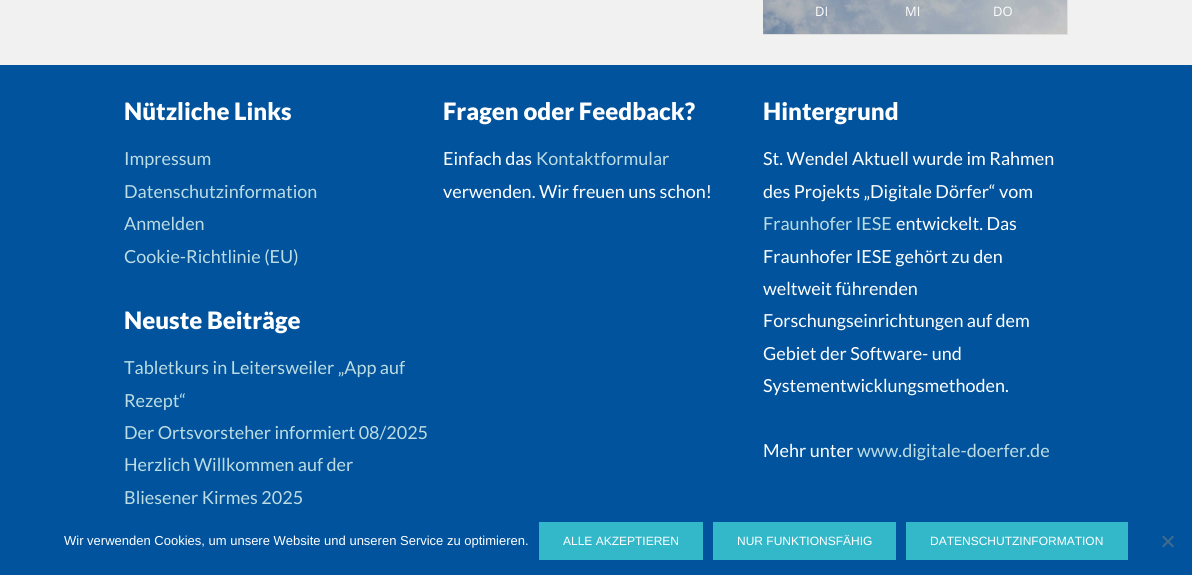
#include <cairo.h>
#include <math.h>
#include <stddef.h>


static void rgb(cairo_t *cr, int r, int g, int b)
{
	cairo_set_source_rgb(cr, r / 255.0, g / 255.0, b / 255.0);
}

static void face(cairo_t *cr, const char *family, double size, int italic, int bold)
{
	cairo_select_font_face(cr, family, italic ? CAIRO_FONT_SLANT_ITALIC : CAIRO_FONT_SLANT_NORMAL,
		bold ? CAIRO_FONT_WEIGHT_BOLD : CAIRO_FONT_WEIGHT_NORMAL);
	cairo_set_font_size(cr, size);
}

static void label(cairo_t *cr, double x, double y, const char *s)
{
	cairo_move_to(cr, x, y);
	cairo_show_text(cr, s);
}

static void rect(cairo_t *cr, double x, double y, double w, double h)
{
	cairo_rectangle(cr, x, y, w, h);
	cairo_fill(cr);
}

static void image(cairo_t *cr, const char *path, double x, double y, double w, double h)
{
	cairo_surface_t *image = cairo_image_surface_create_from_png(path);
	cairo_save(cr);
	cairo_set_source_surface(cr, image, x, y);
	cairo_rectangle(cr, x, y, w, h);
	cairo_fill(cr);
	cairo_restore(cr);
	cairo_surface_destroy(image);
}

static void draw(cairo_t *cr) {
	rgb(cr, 241, 241, 241);
	cairo_paint(cr);
	rgb(cr, 223, 223, 221);
	rect(cr, 1067, 0, 1, 35);
	rect(cr, 763, 34, 305, 1);
	image(cr, "image0.png", 763, 0, 304, 34);
	face(cr, "Open Sans", 13, 0, 0);
	rgb(cr, 255, 255, 255);
	label(cr, 815, 16, "DI");
	label(cr, 905, 16, "MI");
	label(cr, 993, 16, "DO");
	rgb(cr, 0, 83, 156);
	rect(cr, 0, 65, 1192, 510);
	face(cr, "Lato Black", 24, 0, 0);
	rgb(cr, 255, 255, 255);
	label(cr, 124, 120, "Nützliche Links");
	face(cr, "Lato", 18, 0, 0);
	rgb(cr, 188, 220, 227);
	label(cr, 124, 165, "Impressum");
	label(cr, 124, 198, "Datenschutzinformation");
	label(cr, 124, 230, "Anmelden");
	label(cr, 124, 263, "Cookie-Richtlinie (EU)");
	face(cr, "Lato Black", 24, 0, 0);
	rgb(cr, 255, 255, 255);
	label(cr, 124, 329, "Neuste Beiträge");
	face(cr, "Lato", 18, 0, 0);
	rgb(cr, 188, 220, 227);
	label(cr, 124, 374, "Tabletkurs in Leitersweiler „App auf");
	label(cr, 124, 407, "Rezept“");
	label(cr, 124, 439, "Der Ortsvorsteher informiert 08/2025");
	label(cr, 124, 471, "Herzlich Willkommen auf der");
	label(cr, 124, 504, "Bliesener Kirmes 2025");
	face(cr, "Lato Black", 24, 0, 0);
	rgb(cr, 255, 255, 255);
	label(cr, 443, 120, "Fragen oder Feedback?");
	face(cr, "Lato", 18, 0, 0);
	label(cr, 443, 165, "Einfach das");
	rgb(cr, 188, 220, 227);
	label(cr, 536, 165, "Kontaktformular");
	rgb(cr, 255, 255, 255);
	label(cr, 443, 198, "verwenden. Wir freuen uns schon!");
	face(cr, "Lato Black", 24, 0, 0);
	label(cr, 763, 120, "Hintergrund");
	face(cr, "Lato", 18, 0, 0);
	label(cr, 763, 165, "St. Wendel Aktuell wurde im Rahmen");
	label(cr, 763, 198, "des Projekts „Digitale Dörfer“ vom");
	rgb(cr, 188, 220, 227);
	label(cr, 763, 230, "Fraunhofer IESE");
	rgb(cr, 255, 255, 255);
	label(cr, 896, 230, "entwickelt. Das");
	label(cr, 763, 263, "Fraunhofer IESE gehört zu den");
	label(cr, 763, 295, "weltweit führenden");
	label(cr, 763, 327, "Forschungseinrichtungen auf dem");
	label(cr, 763, 360, "Gebiet der Software- und");
	label(cr, 763, 392, "Systementwicklungsmethoden.");
	label(cr, 763, 457, "Mehr unter");
	rgb(cr, 188, 220, 227);
	label(cr, 857, 457, "www.digitale-doerfer.de");
	face(cr, "Liberation Sans", 13, 0, 0);
	rgb(cr, 255, 255, 255);
	label(cr, 64, 545, "Wir verwenden Cookies, um unsere Website und unseren Service zu optimieren.");
	rgb(cr, 51, 184, 202);
	rect(cr, 539, 522, 164, 38);
	face(cr, "Liberation Sans", 12, 0, 0);
	rgb(cr, 255, 255, 255);
	label(cr, 563, 545, "ALLE AKZEPTIEREN");
	rgb(cr, 51, 184, 202);
	rect(cr, 713, 522, 183, 38);
	rgb(cr, 255, 255, 255);
	label(cr, 737, 545, "NUR FUNKTIONSFÄHIG");
	rgb(cr, 51, 184, 202);
	rect(cr, 906, 522, 222, 38);
	rgb(cr, 255, 255, 255);
	label(cr, 930, 545, "DATENSCHUTZINFORMATION");
	rgb(cr, 64, 106, 142);
	cairo_new_path(cr);
	cairo_move_to(cr, 1172.5, 535.5);
	cairo_line_to(cr, 1174, 537);
	cairo_line_to(cr, 1163.5, 547.5);
	cairo_line_to(cr, 1162, 546);
	cairo_close_path(cr);
	cairo_fill(cr);
	cairo_new_path(cr);
	cairo_move_to(cr, 1162, 537);
	cairo_line_to(cr, 1163.5, 535.5);
	cairo_line_to(cr, 1174, 546);
	cairo_line_to(cr, 1172.5, 547.5);
	cairo_close_path(cr);
	cairo_fill(cr);
}

int main(void) {
	cairo_surface_t *surface = cairo_image_surface_create(CAIRO_FORMAT_RGB24, 1192, 575);
	cairo_t *cr = cairo_create(surface);
	cairo_font_options_t *options = cairo_font_options_create();
	cairo_font_options_set_hint_metrics(options, CAIRO_HINT_METRICS_OFF);
	cairo_font_options_set_hint_style(options, CAIRO_HINT_STYLE_NONE);
	cairo_set_font_options(cr, options);
	cairo_set_miter_limit(cr, 4);
	draw(cr);
	cairo_surface_write_to_png(surface, "render.png");
	cairo_font_options_destroy(options);
	cairo_destroy(cr);
	cairo_surface_destroy(surface);
	return 0;
}
